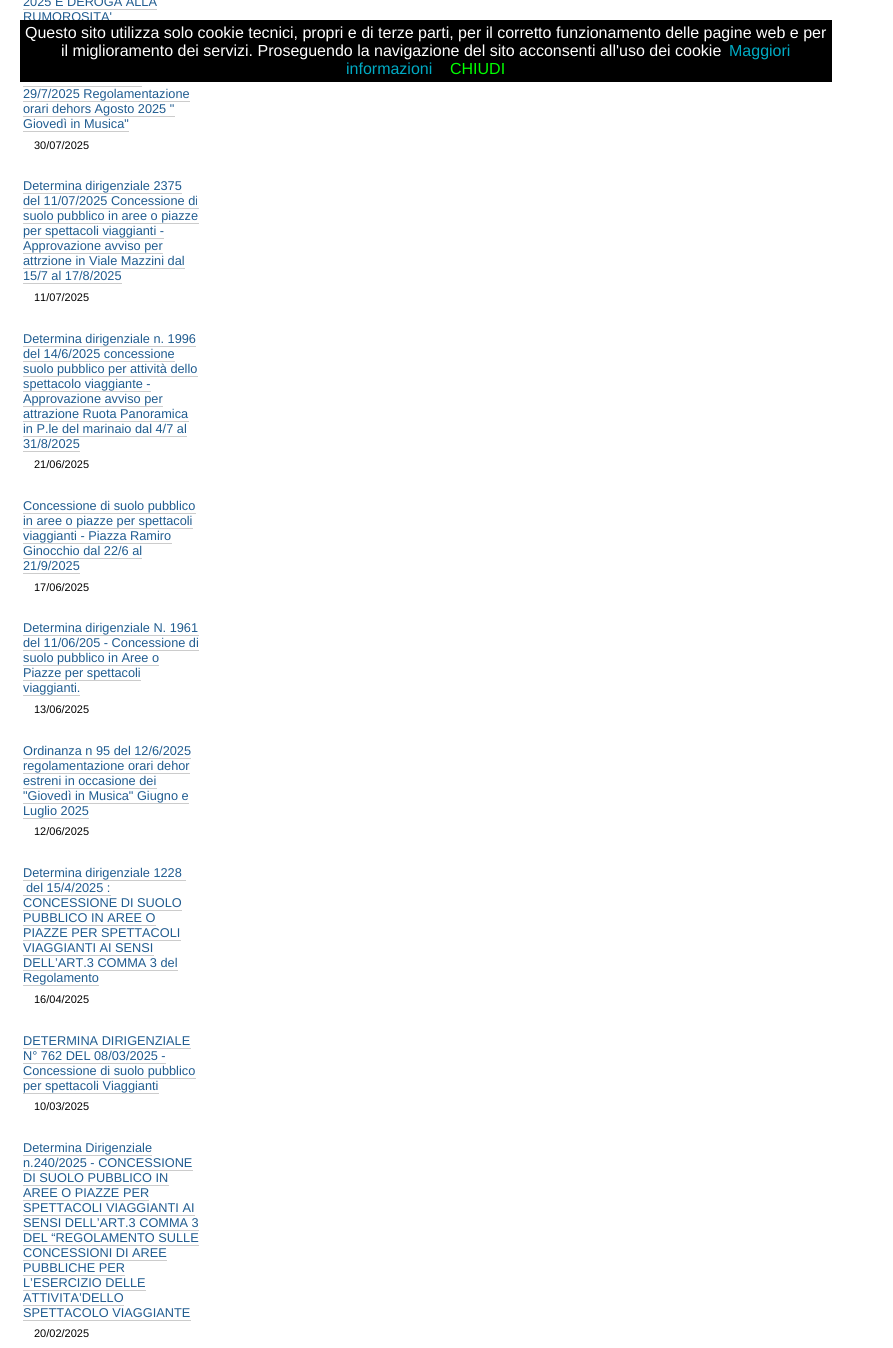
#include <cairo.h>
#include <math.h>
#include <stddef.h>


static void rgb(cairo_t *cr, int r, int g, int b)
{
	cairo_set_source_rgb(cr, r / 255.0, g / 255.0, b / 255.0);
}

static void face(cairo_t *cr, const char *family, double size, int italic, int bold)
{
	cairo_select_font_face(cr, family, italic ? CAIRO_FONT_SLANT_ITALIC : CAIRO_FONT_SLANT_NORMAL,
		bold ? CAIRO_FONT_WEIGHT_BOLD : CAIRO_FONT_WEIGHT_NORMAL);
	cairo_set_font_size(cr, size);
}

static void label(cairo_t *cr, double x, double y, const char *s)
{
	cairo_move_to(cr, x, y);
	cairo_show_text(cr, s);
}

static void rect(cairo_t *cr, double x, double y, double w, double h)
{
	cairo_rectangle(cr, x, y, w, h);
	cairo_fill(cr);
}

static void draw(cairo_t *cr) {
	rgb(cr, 255, 255, 255);
	cairo_paint(cr);
	face(cr, "Liberation Sans", 12.75, 0, 0);
	rgb(cr, 32, 92, 144);
	label(cr, 23, 6, "2025 E DEROGA ALLA");
	rgb(cr, 204, 204, 204);
	rect(cr, 23, 9, 134, 1);
	rgb(cr, 32, 92, 144);
	label(cr, 23, 21, "RUMOROSITA'");
	label(cr, 23, 98, "29/7/2025 Regolamentazione");
	rgb(cr, 204, 204, 204);
	rect(cr, 23, 86, 119, 1);
	rect(cr, 23, 101, 167, 1);
	rgb(cr, 32, 92, 144);
	label(cr, 23, 113, "orari dehors Agosto 2025 \"");
	rgb(cr, 204, 204, 204);
	rect(cr, 23, 116, 152, 1);
	rgb(cr, 32, 92, 144);
	label(cr, 23, 128, "Giovedì in Musica\"");
	rgb(cr, 204, 204, 204);
	rect(cr, 23, 131, 106, 1);
	face(cr, "Liberation Sans", 11, 0, 0);
	rgb(cr, 0, 0, 0);
	label(cr, 34, 149, "30/07/2025");
	face(cr, "Liberation Sans", 12.75, 0, 0);
	rgb(cr, 32, 92, 144);
	label(cr, 23, 190, "Determina dirigenziale 2375");
	rgb(cr, 204, 204, 204);
	rect(cr, 23, 193, 159, 1);
	rgb(cr, 32, 92, 144);
	label(cr, 23, 205, "del 11/07/2025 Concessione di");
	rgb(cr, 204, 204, 204);
	rect(cr, 23, 208, 176, 1);
	rgb(cr, 32, 92, 144);
	label(cr, 23, 220, "suolo pubblico in aree o piazze");
	rgb(cr, 204, 204, 204);
	rect(cr, 23, 223, 176, 1);
	rgb(cr, 32, 92, 144);
	label(cr, 23, 235, "per spettacoli viaggianti -");
	rgb(cr, 204, 204, 204);
	rect(cr, 23, 238, 141, 1);
	rgb(cr, 32, 92, 144);
	label(cr, 23, 250, "Approvazione avviso per");
	rgb(cr, 204, 204, 204);
	rect(cr, 23, 253, 140, 1);
	rgb(cr, 32, 92, 144);
	label(cr, 23, 265, "attrzione in Viale Mazzini dal");
	label(cr, 23, 280, "15/7 al 17/8/2025");
	rgb(cr, 204, 204, 204);
	rect(cr, 23, 268, 162, 1);
	rect(cr, 23, 283, 99, 1);
	face(cr, "Liberation Sans", 11, 0, 0);
	rgb(cr, 0, 0, 0);
	label(cr, 34, 301, "11/07/2025");
	face(cr, "Liberation Sans", 12.75, 0, 0);
	rgb(cr, 32, 92, 144);
	label(cr, 23, 343, "Determina dirigenziale n. 1996");
	rgb(cr, 204, 204, 204);
	rect(cr, 23, 346, 173, 1);
	rgb(cr, 32, 92, 144);
	label(cr, 23, 358, "del 14/6/2025 concessione");
	rgb(cr, 204, 204, 204);
	rect(cr, 23, 361, 152, 1);
	rgb(cr, 32, 92, 144);
	label(cr, 23, 373, "suolo pubblico per attività dello");
	rgb(cr, 204, 204, 204);
	rect(cr, 23, 376, 175, 1);
	rgb(cr, 32, 92, 144);
	label(cr, 23, 388, "spettacolo viaggiante -");
	rgb(cr, 204, 204, 204);
	rect(cr, 23, 391, 128, 1);
	rgb(cr, 32, 92, 144);
	label(cr, 23, 403, "Approvazione avviso per");
	rgb(cr, 204, 204, 204);
	rect(cr, 23, 406, 140, 1);
	rgb(cr, 32, 92, 144);
	label(cr, 23, 418, "attrazione Ruota Panoramica");
	label(cr, 23, 433, "in P.le del marinaio dal 4/7 al");
	rgb(cr, 204, 204, 204);
	rect(cr, 23, 421, 166, 1);
	rgb(cr, 32, 92, 144);
	label(cr, 23, 448, "31/8/2025");
	rgb(cr, 204, 204, 204);
	rect(cr, 23, 436, 164, 1);
	rect(cr, 23, 451, 57, 1);
	face(cr, "Liberation Sans", 11, 0, 0);
	rgb(cr, 0, 0, 0);
	label(cr, 34, 468, "21/06/2025");
	face(cr, "Liberation Sans", 12.75, 0, 0);
	rgb(cr, 32, 92, 144);
	label(cr, 23, 510, "Concessione di suolo pubblico");
	rgb(cr, 204, 204, 204);
	rect(cr, 23, 513, 173, 1);
	rgb(cr, 32, 92, 144);
	label(cr, 23, 525, "in aree o piazze per spettacoli");
	rgb(cr, 204, 204, 204);
	rect(cr, 23, 528, 170, 1);
	rgb(cr, 32, 92, 144);
	label(cr, 23, 540, "viaggianti - Piazza Ramiro");
	rgb(cr, 204, 204, 204);
	rect(cr, 23, 543, 149, 1);
	rgb(cr, 32, 92, 144);
	label(cr, 23, 555, "Ginocchio dal 22/6 al");
	label(cr, 23, 570, "21/9/2025");
	rgb(cr, 204, 204, 204);
	rect(cr, 23, 558, 119, 1);
	rect(cr, 23, 573, 57, 1);
	face(cr, "Liberation Sans", 11, 0, 0);
	rgb(cr, 0, 0, 0);
	label(cr, 34, 591, "17/06/2025");
	face(cr, "Liberation Sans", 12.75, 0, 0);
	rgb(cr, 32, 92, 144);
	label(cr, 23, 632, "Determina dirigenziale N. 1961");
	rgb(cr, 204, 204, 204);
	rect(cr, 23, 635, 176, 1);
	rgb(cr, 32, 92, 144);
	label(cr, 23, 647, "del 11/06/205 - Concessione di");
	rgb(cr, 204, 204, 204);
	rect(cr, 23, 650, 176, 1);
	rgb(cr, 32, 92, 144);
	label(cr, 23, 662, "suolo pubblico in Aree o");
	rgb(cr, 204, 204, 204);
	rect(cr, 23, 665, 136, 1);
	rgb(cr, 32, 92, 144);
	label(cr, 23, 677, "Piazze per spettacoli");
	rgb(cr, 204, 204, 204);
	rect(cr, 23, 680, 118, 1);
	rgb(cr, 32, 92, 144);
	label(cr, 23, 692, "viaggianti.");
	rgb(cr, 204, 204, 204);
	rect(cr, 23, 695, 57, 1);
	face(cr, "Liberation Sans", 11, 0, 0);
	rgb(cr, 0, 0, 0);
	label(cr, 34, 713, "13/06/2025");
	face(cr, "Liberation Sans", 12.75, 0, 0);
	rgb(cr, 32, 92, 144);
	label(cr, 23, 755, "Ordinanza n 95 del 12/6/2025");
	rgb(cr, 204, 204, 204);
	rect(cr, 23, 758, 168, 1);
	rgb(cr, 32, 92, 144);
	label(cr, 23, 770, "regolamentazione orari dehor");
	rgb(cr, 204, 204, 204);
	rect(cr, 23, 773, 167, 1);
	rgb(cr, 32, 92, 144);
	label(cr, 23, 785, "estreni in occasione dei");
	rgb(cr, 204, 204, 204);
	rect(cr, 23, 788, 134, 1);
	rgb(cr, 32, 92, 144);
	label(cr, 23, 800, "\"Giovedì in Musica\" Giugno e");
	rgb(cr, 204, 204, 204);
	rect(cr, 23, 803, 166, 1);
	rgb(cr, 32, 92, 144);
	label(cr, 23, 815, "Luglio 2025");
	rgb(cr, 204, 204, 204);
	rect(cr, 23, 818, 66, 1);
	face(cr, "Liberation Sans", 11, 0, 0);
	rgb(cr, 0, 0, 0);
	label(cr, 34, 835, "12/06/2025");
	face(cr, "Liberation Sans", 12.75, 0, 0);
	rgb(cr, 32, 92, 144);
	label(cr, 23, 877, "Determina dirigenziale 1228");
	rgb(cr, 204, 204, 204);
	rect(cr, 23, 880, 163, 1);
	rgb(cr, 32, 92, 144);
	label(cr, 26, 892, "del 15/4/2025 :");
	label(cr, 23, 907, "CONCESSIONE DI SUOLO");
	rgb(cr, 204, 204, 204);
	rect(cr, 23, 895, 88, 1);
	rect(cr, 23, 910, 159, 1);
	rgb(cr, 32, 92, 144);
	label(cr, 23, 922, "PUBBLICO IN AREE O");
	rgb(cr, 204, 204, 204);
	rect(cr, 23, 925, 133, 1);
	rgb(cr, 32, 92, 144);
	label(cr, 23, 937, "PIAZZE PER SPETTACOLI");
	rgb(cr, 204, 204, 204);
	rect(cr, 23, 940, 158, 1);
	rgb(cr, 32, 92, 144);
	label(cr, 23, 952, "VIAGGIANTI AI SENSI");
	label(cr, 23, 967, "DELL’ART.3 COMMA 3 del");
	rgb(cr, 204, 204, 204);
	rect(cr, 23, 955, 131, 1);
	rect(cr, 23, 970, 155, 1);
	rgb(cr, 32, 92, 144);
	label(cr, 23, 982, "Regolamento");
	rgb(cr, 204, 204, 204);
	rect(cr, 23, 985, 76, 1);
	face(cr, "Liberation Sans", 11, 0, 0);
	rgb(cr, 0, 0, 0);
	label(cr, 34, 1003, "16/04/2025");
	face(cr, "Liberation Sans", 12.75, 0, 0);
	rgb(cr, 32, 92, 144);
	label(cr, 23, 1045, "DETERMINA DIRIGENZIALE");
	label(cr, 23, 1060, "N° 762 DEL 08/03/2025 -");
	rgb(cr, 204, 204, 204);
	rect(cr, 23, 1048, 168, 1);
	rect(cr, 23, 1063, 143, 1);
	rgb(cr, 32, 92, 144);
	label(cr, 23, 1075, "Concessione di suolo pubblico");
	rgb(cr, 204, 204, 204);
	rect(cr, 23, 1078, 173, 1);
	rgb(cr, 32, 92, 144);
	label(cr, 23, 1090, "per spettacoli Viaggianti");
	rgb(cr, 204, 204, 204);
	rect(cr, 23, 1093, 136, 1);
	face(cr, "Liberation Sans", 11, 0, 0);
	rgb(cr, 0, 0, 0);
	label(cr, 34, 1110, "10/03/2025");
	face(cr, "Liberation Sans", 12.75, 0, 0);
	rgb(cr, 32, 92, 144);
	label(cr, 23, 1152, "Determina Dirigenziale");
	rgb(cr, 204, 204, 204);
	rect(cr, 23, 1155, 129, 1);
	rgb(cr, 32, 92, 144);
	label(cr, 23, 1167, "n.240/2025 - CONCESSIONE");
	label(cr, 23, 1182, "DI SUOLO PUBBLICO IN");
	rgb(cr, 204, 204, 204);
	rect(cr, 23, 1170, 170, 1);
	rect(cr, 23, 1185, 146, 1);
	rgb(cr, 32, 92, 144);
	label(cr, 23, 1197, "AREE O PIAZZE PER");
	rgb(cr, 204, 204, 204);
	rect(cr, 23, 1200, 126, 1);
	rgb(cr, 32, 92, 144);
	label(cr, 23, 1212, "SPETTACOLI VIAGGIANTI AI");
	rgb(cr, 204, 204, 204);
	rect(cr, 23, 1215, 172, 1);
	rgb(cr, 32, 92, 144);
	label(cr, 23, 1227, "SENSI DELL’ART.3 COMMA 3");
	rgb(cr, 204, 204, 204);
	rect(cr, 23, 1230, 176, 1);
	rgb(cr, 32, 92, 144);
	label(cr, 23, 1242, "DEL “REGOLAMENTO SULLE");
	rgb(cr, 204, 204, 204);
	rect(cr, 23, 1245, 176, 1);
	rgb(cr, 32, 92, 144);
	label(cr, 23, 1257, "CONCESSIONI DI AREE");
	rgb(cr, 204, 204, 204);
	rect(cr, 23, 1260, 144, 1);
	rgb(cr, 32, 92, 144);
	label(cr, 23, 1272, "PUBBLICHE PER");
	rgb(cr, 204, 204, 204);
	rect(cr, 23, 1275, 102, 1);
	rgb(cr, 32, 92, 144);
	label(cr, 23, 1287, "L’ESERCIZIO DELLE");
	rgb(cr, 204, 204, 204);
	rect(cr, 23, 1290, 123, 1);
	rgb(cr, 32, 92, 144);
	label(cr, 23, 1302, "ATTIVITA’DELLO");
	rgb(cr, 204, 204, 204);
	rect(cr, 23, 1305, 101, 1);
	rgb(cr, 32, 92, 144);
	label(cr, 23, 1317, "SPETTACOLO VIAGGIANTE");
	rgb(cr, 204, 204, 204);
	rect(cr, 23, 1320, 168, 1);
	face(cr, "Liberation Sans", 11, 0, 0);
	rgb(cr, 0, 0, 0);
	label(cr, 34, 1337, "20/02/2025");
	rect(cr, 20, 20, 812, 62);
	face(cr, "Liberation Sans", 16, 0, 0);
	rgb(cr, 255, 255, 255);
	label(cr, 25, 38, "Questo sito utilizza solo cookie tecnici, propri e di terze parti, per il corretto funzionamento delle pagine web e per");
	label(cr, 61, 56, "il miglioramento dei servizi. Proseguendo la navigazione del sito acconsenti all'uso dei cookie");
	rgb(cr, 0, 170, 195);
	label(cr, 729, 56, "Maggiori");
	label(cr, 346, 74, "informazioni");
	rgb(cr, 0, 255, 0);
	label(cr, 450, 74, "CHIUDI");
}

int main(void) {
	cairo_surface_t *surface = cairo_image_surface_create(CAIRO_FORMAT_RGB24, 893, 1348);
	cairo_t *cr = cairo_create(surface);
	cairo_font_options_t *options = cairo_font_options_create();
	cairo_font_options_set_hint_metrics(options, CAIRO_HINT_METRICS_OFF);
	cairo_font_options_set_hint_style(options, CAIRO_HINT_STYLE_NONE);
	cairo_set_font_options(cr, options);
	cairo_set_miter_limit(cr, 4);
	draw(cr);
	cairo_surface_write_to_png(surface, "render.png");
	cairo_font_options_destroy(options);
	cairo_destroy(cr);
	cairo_surface_destroy(surface);
	return 0;
}
